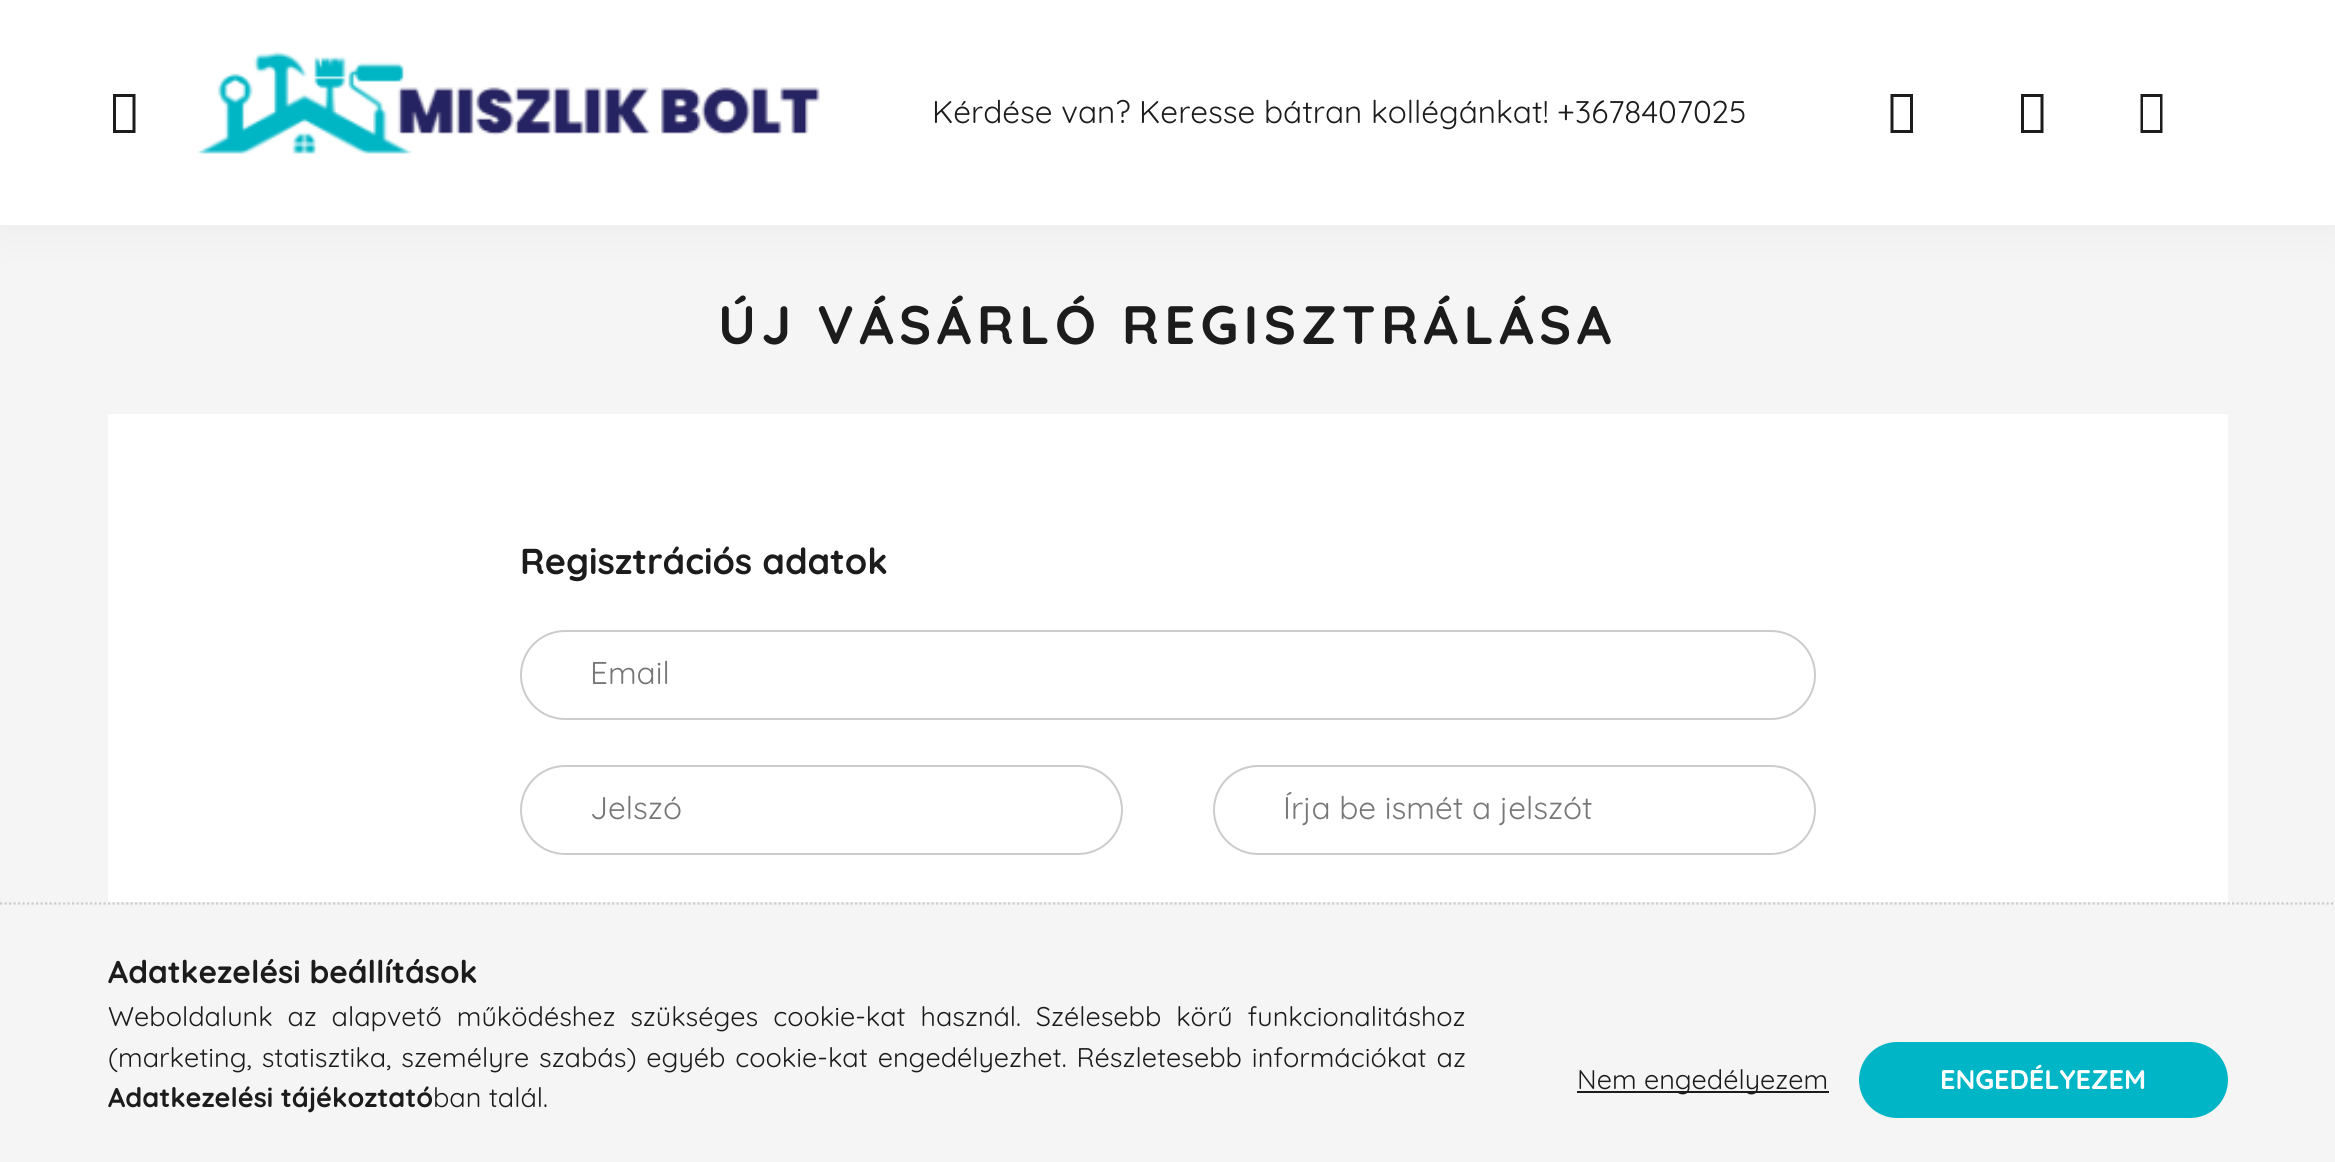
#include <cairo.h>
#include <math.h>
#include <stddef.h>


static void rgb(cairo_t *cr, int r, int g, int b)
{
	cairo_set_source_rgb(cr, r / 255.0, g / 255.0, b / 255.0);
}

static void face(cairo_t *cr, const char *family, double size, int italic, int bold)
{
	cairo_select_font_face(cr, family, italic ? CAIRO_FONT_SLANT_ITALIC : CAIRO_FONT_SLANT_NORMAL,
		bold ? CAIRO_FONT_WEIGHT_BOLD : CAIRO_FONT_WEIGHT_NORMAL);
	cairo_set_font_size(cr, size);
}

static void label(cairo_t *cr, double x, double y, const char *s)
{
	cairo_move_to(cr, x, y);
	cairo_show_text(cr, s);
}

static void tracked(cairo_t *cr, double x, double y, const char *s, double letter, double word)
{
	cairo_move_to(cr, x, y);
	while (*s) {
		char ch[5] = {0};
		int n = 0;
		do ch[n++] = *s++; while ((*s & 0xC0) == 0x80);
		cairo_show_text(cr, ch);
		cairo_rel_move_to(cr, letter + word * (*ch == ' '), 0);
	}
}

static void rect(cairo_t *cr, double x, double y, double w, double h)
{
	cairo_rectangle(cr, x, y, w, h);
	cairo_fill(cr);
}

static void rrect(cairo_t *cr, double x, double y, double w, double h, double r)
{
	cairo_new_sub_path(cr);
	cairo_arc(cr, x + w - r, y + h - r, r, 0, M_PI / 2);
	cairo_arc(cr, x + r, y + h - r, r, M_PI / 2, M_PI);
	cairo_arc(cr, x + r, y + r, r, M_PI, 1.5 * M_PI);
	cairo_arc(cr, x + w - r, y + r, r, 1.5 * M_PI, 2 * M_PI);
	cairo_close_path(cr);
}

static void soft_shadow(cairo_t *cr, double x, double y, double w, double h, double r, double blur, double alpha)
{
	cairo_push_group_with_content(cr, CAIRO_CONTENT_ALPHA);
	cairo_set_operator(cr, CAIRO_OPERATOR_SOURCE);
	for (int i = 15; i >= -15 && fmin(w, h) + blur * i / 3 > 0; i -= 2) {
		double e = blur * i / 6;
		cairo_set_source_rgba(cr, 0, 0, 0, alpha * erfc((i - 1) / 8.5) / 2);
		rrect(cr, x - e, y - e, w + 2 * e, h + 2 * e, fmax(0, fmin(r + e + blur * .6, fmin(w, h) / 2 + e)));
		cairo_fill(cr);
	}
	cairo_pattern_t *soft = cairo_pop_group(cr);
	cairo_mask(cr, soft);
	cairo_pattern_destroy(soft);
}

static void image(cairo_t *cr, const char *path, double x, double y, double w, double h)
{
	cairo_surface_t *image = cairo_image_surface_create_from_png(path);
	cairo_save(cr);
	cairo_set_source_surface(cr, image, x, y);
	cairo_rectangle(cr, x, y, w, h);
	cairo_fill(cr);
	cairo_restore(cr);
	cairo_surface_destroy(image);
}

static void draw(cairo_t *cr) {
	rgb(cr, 245, 245, 245);
	cairo_paint(cr);
	rgb(cr, 0, 0, 0);
	soft_shadow(cr, 0, 0, 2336, 225, 0, 22.5, 0.05);
	rgb(cr, 255, 255, 255);
	rect(cr, 0, 0, 2335, 225);
	rgb(cr, 28, 28, 28);
	cairo_new_path(cr);
	cairo_move_to(cr, 113, 133);
	cairo_line_to(cr, 113, 94);
	cairo_line_to(cr, 135.5, 94);
	cairo_line_to(cr, 135.5, 133);
	cairo_close_path(cr);
	cairo_move_to(cr, 116, 130);
	cairo_line_to(cr, 132.5, 130);
	cairo_line_to(cr, 132.5, 97);
	cairo_line_to(cr, 116, 97);
	cairo_close_path(cr);
	cairo_fill(cr);
	image(cr, "image0.png", 198, 51, 622, 103);
	face(cr, "Quicksand", 31.5, 0, 0);
	label(cr, 932, 123, "Kérdése van? Keresse bátran kollégánkat! +3678407025");
	cairo_new_path(cr);
	cairo_move_to(cr, 1890.5, 133);
	cairo_line_to(cr, 1890.5, 94);
	cairo_line_to(cr, 1913, 94);
	cairo_line_to(cr, 1913, 133);
	cairo_close_path(cr);
	cairo_move_to(cr, 1893.5, 130);
	cairo_line_to(cr, 1910, 130);
	cairo_line_to(cr, 1910, 97);
	cairo_line_to(cr, 1893.5, 97);
	cairo_close_path(cr);
	cairo_fill(cr);
	cairo_new_path(cr);
	cairo_move_to(cr, 2021, 133);
	cairo_line_to(cr, 2021, 94);
	cairo_line_to(cr, 2043.5, 94);
	cairo_line_to(cr, 2043.5, 133);
	cairo_close_path(cr);
	cairo_move_to(cr, 2024, 130);
	cairo_line_to(cr, 2040.5, 130);
	cairo_line_to(cr, 2040.5, 97);
	cairo_line_to(cr, 2024, 97);
	cairo_close_path(cr);
	cairo_fill(cr);
	cairo_new_path(cr);
	cairo_move_to(cr, 2140.5, 133);
	cairo_line_to(cr, 2140.5, 94);
	cairo_line_to(cr, 2162.5, 94);
	cairo_line_to(cr, 2162.5, 133);
	cairo_close_path(cr);
	cairo_move_to(cr, 2143, 130);
	cairo_line_to(cr, 2160, 130);
	cairo_line_to(cr, 2160, 97);
	cairo_line_to(cr, 2143, 97);
	cairo_close_path(cr);
	cairo_fill(cr);
	face(cr, "Quicksand", 54, 0, 1);
	tracked(cr, 718, 344, "ÚJ VÁSÁRLÓ REGISZTRÁLÁSA", 5.4, 0);
	rgb(cr, 255, 255, 255);
	rect(cr, 108, 414, 2120, 488);
	face(cr, "Quicksand", 36, 0, 1);
	rgb(cr, 28, 28, 28);
	label(cr, 520, 574, "Regisztrációs adatok");
	rrect(cr, 521, 631, 1294, 88, 44);
	rgb(cr, 204, 204, 204);
	cairo_stroke(cr);
	face(cr, "Quicksand", 31.5, 0, 0);
	rgb(cr, 119, 119, 119);
	label(cr, 590, 684, "Email");
	rrect(cr, 521, 766, 601, 88, 44);
	rgb(cr, 204, 204, 204);
	cairo_stroke(cr);
	rgb(cr, 119, 119, 119);
	label(cr, 590, 819, "Jelszó");
	rrect(cr, 1214, 766, 601, 88, 44);
	rgb(cr, 204, 204, 204);
	cairo_stroke(cr);
	rgb(cr, 119, 119, 119);
	label(cr, 1283, 819, "Írja be ismét a jelszót");
	cairo_new_path(cr);
	cairo_move_to(cr, 0, 903.5);
	cairo_line_to(cr, 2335.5, 903.5);
	rgb(cr, 204, 204, 204);
	cairo_set_line_width(cr, 2.2);
	cairo_set_dash(cr, (double[]){2.25, 2.25}, 2, 0);
	cairo_stroke(cr);
	face(cr, "Quicksand", 31.5, 0, 1);
	rgb(cr, 28, 28, 28);
	label(cr, 108, 983, "Adatkezelési beállítások");
	face(cr, "Quicksand", 27, 0, 0);
	tracked(cr, 108, 1026, "Weboldalunk az alapvető működéshez szükséges cookie-kat használ. Szélesebb körű funkcionalitáshoz", 0, 7.5);
	tracked(cr, 108, 1067, "(marketing, statisztika, személyre szabás) egyéb cookie-kat engedélyezhet. Részletesebb információkat az", 0, 2.5);
	face(cr, "Quicksand", 27, 0, 1);
	label(cr, 108, 1107, "Adatkezelési tájékoztató");
	face(cr, "Quicksand", 27, 0, 0);
	label(cr, 433, 1107, "ban talál.");
	rect(cr, 1577, 1091, 252, 2);
	label(cr, 1577, 1089, "Nem engedélyezem");
	rgb(cr, 0, 181, 197);
	rrect(cr, 1859, 1042, 369, 76, 38);
	cairo_fill(cr);
	face(cr, "Quicksand", 27, 0, 1);
	rgb(cr, 255, 255, 255);
	label(cr, 1940, 1089, "ENGEDÉLYEZEM");
}

int main(void) {
	cairo_surface_t *surface = cairo_image_surface_create(CAIRO_FORMAT_RGB24, 2335, 1162);
	cairo_t *cr = cairo_create(surface);
	cairo_font_options_t *options = cairo_font_options_create();
	cairo_font_options_set_hint_metrics(options, CAIRO_HINT_METRICS_OFF);
	cairo_font_options_set_hint_style(options, CAIRO_HINT_STYLE_NONE);
	cairo_set_font_options(cr, options);
	cairo_set_miter_limit(cr, 4);
	draw(cr);
	cairo_surface_write_to_png(surface, "render.png");
	cairo_font_options_destroy(options);
	cairo_destroy(cr);
	cairo_surface_destroy(surface);
	return 0;
}
